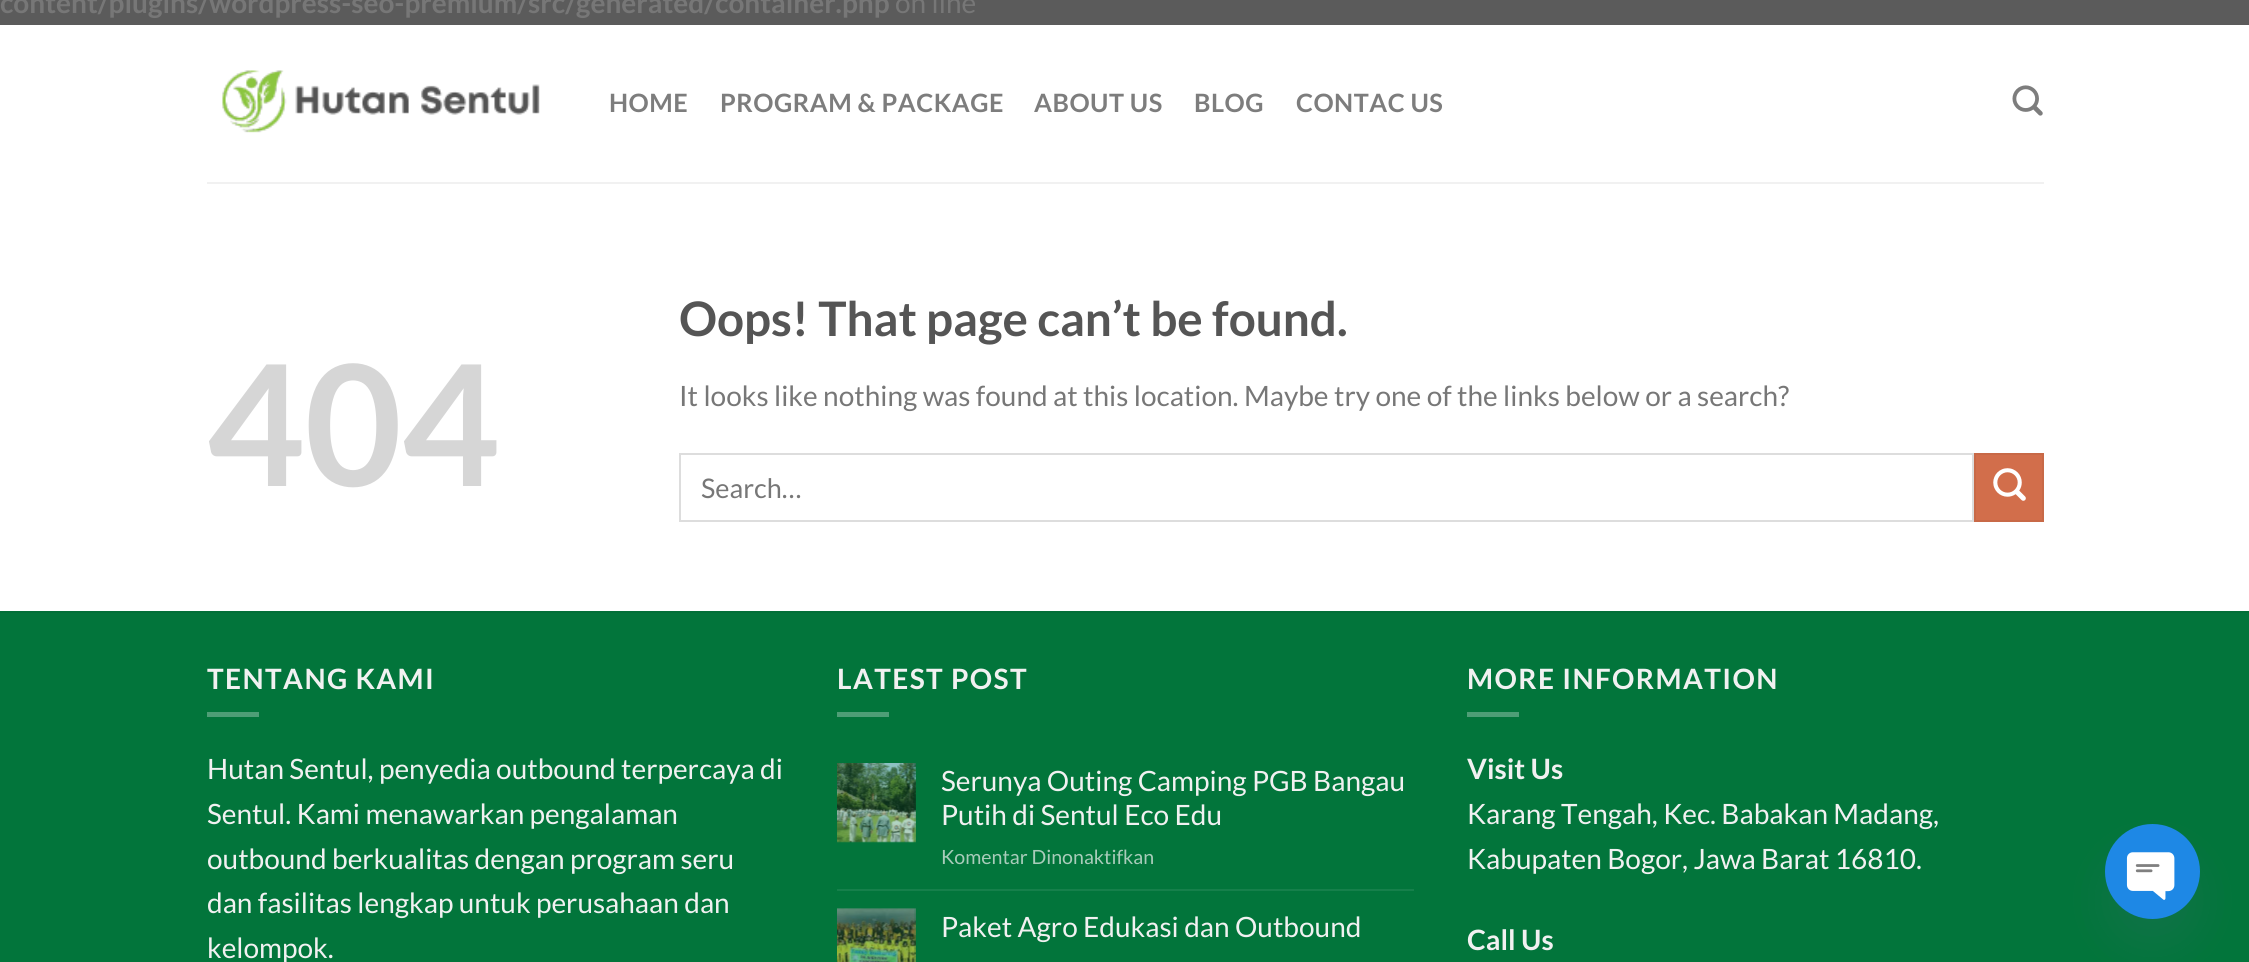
#include <cairo.h>
#include <math.h>
#include <stddef.h>


static void rgb(cairo_t *cr, int r, int g, int b)
{
	cairo_set_source_rgb(cr, r / 255.0, g / 255.0, b / 255.0);
}

static void face(cairo_t *cr, const char *family, double size, int italic, int bold)
{
	cairo_select_font_face(cr, family, italic ? CAIRO_FONT_SLANT_ITALIC : CAIRO_FONT_SLANT_NORMAL,
		bold ? CAIRO_FONT_WEIGHT_BOLD : CAIRO_FONT_WEIGHT_NORMAL);
	cairo_set_font_size(cr, size);
}

static void label(cairo_t *cr, double x, double y, const char *s)
{
	cairo_move_to(cr, x, y);
	cairo_show_text(cr, s);
}

static void tracked(cairo_t *cr, double x, double y, const char *s, double letter, double word)
{
	cairo_move_to(cr, x, y);
	while (*s) {
		char ch[5] = {0};
		int n = 0;
		do ch[n++] = *s++; while ((*s & 0xC0) == 0x80);
		cairo_show_text(cr, ch);
		cairo_rel_move_to(cr, letter + word * (*ch == ' '), 0);
	}
}

static void rect(cairo_t *cr, double x, double y, double w, double h)
{
	cairo_rectangle(cr, x, y, w, h);
	cairo_fill(cr);
}

static void rrect(cairo_t *cr, double x, double y, double w, double h, double r)
{
	cairo_new_sub_path(cr);
	cairo_arc(cr, x + w - r, y + h - r, r, 0, M_PI / 2);
	cairo_arc(cr, x + r, y + h - r, r, M_PI / 2, M_PI);
	cairo_arc(cr, x + r, y + r, r, M_PI, 1.5 * M_PI);
	cairo_arc(cr, x + w - r, y + r, r, 1.5 * M_PI, 2 * M_PI);
	cairo_close_path(cr);
}

static void soft_shadow(cairo_t *cr, double x, double y, double w, double h, double r, double blur, double alpha)
{
	cairo_push_group_with_content(cr, CAIRO_CONTENT_ALPHA);
	cairo_set_operator(cr, CAIRO_OPERATOR_SOURCE);
	for (int i = 15; i >= -15 && fmin(w, h) + blur * i / 3 > 0; i -= 2) {
		double e = blur * i / 6;
		cairo_set_source_rgba(cr, 0, 0, 0, alpha * erfc((i - 1) / 8.5) / 2);
		rrect(cr, x - e, y - e, w + 2 * e, h + 2 * e, fmax(0, fmin(r + e + blur * .6, fmin(w, h) / 2 + e)));
		cairo_fill(cr);
	}
	cairo_pattern_t *soft = cairo_pop_group(cr);
	cairo_mask(cr, soft);
	cairo_pattern_destroy(soft);
}

static void image(cairo_t *cr, const char *path, double x, double y, double w, double h)
{
	cairo_surface_t *image = cairo_image_surface_create_from_png(path);
	cairo_save(cr);
	cairo_set_source_surface(cr, image, x, y);
	cairo_rectangle(cr, x, y, w, h);
	cairo_fill(cr);
	cairo_restore(cr);
	cairo_surface_destroy(image);
}

static void draw(cairo_t *cr) {
	rgb(cr, 91, 91, 91);
	cairo_paint(cr);
	face(cr, "Lato", 28, 0, 1);
	rgb(cr, 119, 119, 119);
	label(cr, 0, 13, "content/plugins/wordpress-seo-premium/src/generated/container.php");
	face(cr, "Lato", 28, 0, 0);
	label(cr, 895, 13, "on line");
	rgb(cr, 255, 255, 255);
	rect(cr, 0, 25, 2249, 586);
	image(cr, "image0.png", 222, 70, 318, 63);
	face(cr, "Lato", 25.25, 0, 1);
	rgb(cr, 125, 125, 125);
	tracked(cr, 609, 112, "HOME", 0.5, 0);
	tracked(cr, 720, 112, "PROGRAM & PACKAGE", 0.5, 0);
	tracked(cr, 1034, 112, "ABOUT US", 0.5, 0);
	tracked(cr, 1194, 112, "BLOG", 0.5, 0);
	tracked(cr, 1296, 112, "CONTAC US", 0.5, 0);
	image(cr, "image1.png", 2012, 85, 31, 31);
	rgb(cr, 241, 241, 241);
	rect(cr, 207, 182, 1837, 2);
	face(cr, "Lato", 168, 0, 1);
	rgb(cr, 214, 214, 214);
	label(cr, 207, 486, "404");
	face(cr, "Lato", 47.6, 0, 1);
	rgb(cr, 85, 85, 85);
	label(cr, 679, 336, "Oops! That page can’t be found.");
	face(cr, "Lato", 28, 0, 0);
	rgb(cr, 119, 119, 119);
	label(cr, 679, 406, "It looks like nothing was found at this location. Maybe try one of the links below or a search?");
	cairo_rectangle(cr, 680, 454, 1293, 67);
	rgb(cr, 221, 221, 221);
	cairo_stroke(cr);
	face(cr, "Lato", 27, 0, 0);
	rgb(cr, 119, 119, 119);
	label(cr, 701, 498, "Search…");
	rgb(cr, 210, 110, 75);
	cairo_rectangle(cr, 1975, 454, 68, 67);
	cairo_fill_preserve(cr);
	rgb(cr, 200, 105, 71);
	cairo_stroke(cr);
	image(cr, "image2.png", 1993, 468, 33, 33);
	rgb(cr, 2, 117, 59);
	rect(cr, 0, 613, 2249, 349);
	rgb(cr, 2, 111, 56);
	rect(cr, 0, 611, 2249, 2);
	face(cr, "Lato", 28, 0, 1);
	rgb(cr, 241, 241, 241);
	tracked(cr, 207, 689, "TENTANG KAMI", 1.4, 0);
	rgb(cr, 78, 158, 118);
	rect(cr, 207, 712, 52, 5);
	face(cr, "Lato", 28, 0, 0);
	rgb(cr, 241, 241, 241);
	label(cr, 207, 779, "Hutan Sentul, penyedia outbound terpercaya di");
	label(cr, 207, 824, "Sentul. Kami menawarkan pengalaman");
	label(cr, 207, 869, "outbound berkualitas dengan program seru");
	label(cr, 207, 913, "dan fasilitas lengkap untuk perusahaan dan");
	label(cr, 207, 958, "kelompok.");
	face(cr, "Lato", 28, 0, 1);
	tracked(cr, 837, 689, "LATEST POST", 1.4, 0);
	rgb(cr, 78, 158, 118);
	rect(cr, 837, 712, 52, 5);
	image(cr, "image3.png", 837, 763, 79, 80);
	face(cr, "Lato", 28, 0, 0);
	rgb(cr, 241, 241, 241);
	label(cr, 941, 791, "Serunya Outing Camping PGB Bangau");
	label(cr, 941, 825, "Putih di Sentul Eco Edu");
	face(cr, "Lato", 19.6, 0, 0);
	rgb(cr, 169, 204, 186);
	label(cr, 941, 864, "Komentar Dinonaktifkan");
	rgb(cr, 22, 128, 75);
	rect(cr, 837, 889, 577, 2);
	image(cr, "image4.png", 837, 908, 79, 54);
	face(cr, "Lato", 28, 0, 0);
	rgb(cr, 241, 241, 241);
	label(cr, 941, 937, "Paket Agro Edukasi dan Outbound");
	face(cr, "Lato", 28, 0, 1);
	tracked(cr, 1467, 689, "MORE INFORMATION", 1.4, 0);
	rgb(cr, 78, 158, 118);
	rect(cr, 1467, 712, 52, 5);
	rgb(cr, 241, 241, 241);
	label(cr, 1467, 779, "Visit Us");
	face(cr, "Lato", 28, 0, 0);
	label(cr, 1467, 824, "Karang Tengah, Kec. Babakan Madang,");
	label(cr, 1467, 869, "Kabupaten Bogor, Jawa Barat 16810.");
	face(cr, "Lato", 28, 0, 1);
	label(cr, 1467, 950, "Call Us");
	rgb(cr, 73, 104, 126);
	soft_shadow(cr, 2105, 852, 95, 95, 47.5, 21, 0.16);
	rgb(cr, 30, 136, 229);
	cairo_arc(cr, 2152.5, 871.5, 47.5, 0, 2 * M_PI);
	cairo_fill(cr);
	image(cr, "image5.png", 2126, 852, 49, 48);
}

int main(void) {
	cairo_surface_t *surface = cairo_image_surface_create(CAIRO_FORMAT_RGB24, 2249, 962);
	cairo_t *cr = cairo_create(surface);
	cairo_font_options_t *options = cairo_font_options_create();
	cairo_font_options_set_hint_metrics(options, CAIRO_HINT_METRICS_OFF);
	cairo_font_options_set_hint_style(options, CAIRO_HINT_STYLE_NONE);
	cairo_set_font_options(cr, options);
	cairo_set_miter_limit(cr, 4);
	draw(cr);
	cairo_surface_write_to_png(surface, "render.png");
	cairo_font_options_destroy(options);
	cairo_destroy(cr);
	cairo_surface_destroy(surface);
	return 0;
}
